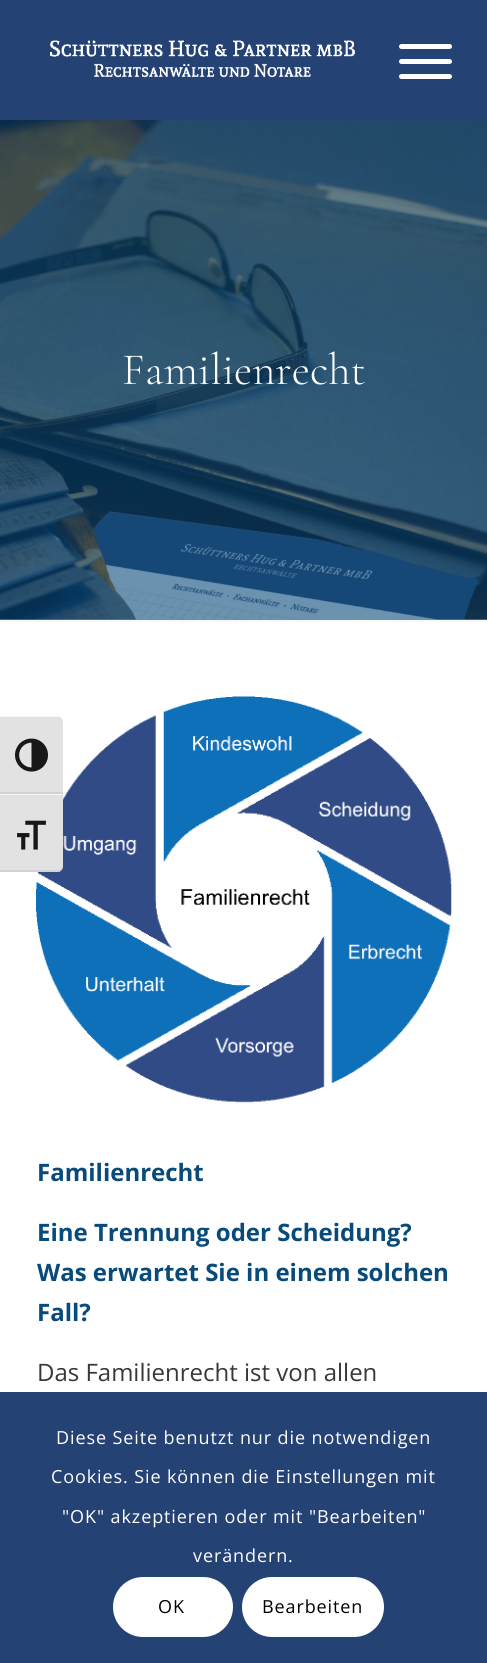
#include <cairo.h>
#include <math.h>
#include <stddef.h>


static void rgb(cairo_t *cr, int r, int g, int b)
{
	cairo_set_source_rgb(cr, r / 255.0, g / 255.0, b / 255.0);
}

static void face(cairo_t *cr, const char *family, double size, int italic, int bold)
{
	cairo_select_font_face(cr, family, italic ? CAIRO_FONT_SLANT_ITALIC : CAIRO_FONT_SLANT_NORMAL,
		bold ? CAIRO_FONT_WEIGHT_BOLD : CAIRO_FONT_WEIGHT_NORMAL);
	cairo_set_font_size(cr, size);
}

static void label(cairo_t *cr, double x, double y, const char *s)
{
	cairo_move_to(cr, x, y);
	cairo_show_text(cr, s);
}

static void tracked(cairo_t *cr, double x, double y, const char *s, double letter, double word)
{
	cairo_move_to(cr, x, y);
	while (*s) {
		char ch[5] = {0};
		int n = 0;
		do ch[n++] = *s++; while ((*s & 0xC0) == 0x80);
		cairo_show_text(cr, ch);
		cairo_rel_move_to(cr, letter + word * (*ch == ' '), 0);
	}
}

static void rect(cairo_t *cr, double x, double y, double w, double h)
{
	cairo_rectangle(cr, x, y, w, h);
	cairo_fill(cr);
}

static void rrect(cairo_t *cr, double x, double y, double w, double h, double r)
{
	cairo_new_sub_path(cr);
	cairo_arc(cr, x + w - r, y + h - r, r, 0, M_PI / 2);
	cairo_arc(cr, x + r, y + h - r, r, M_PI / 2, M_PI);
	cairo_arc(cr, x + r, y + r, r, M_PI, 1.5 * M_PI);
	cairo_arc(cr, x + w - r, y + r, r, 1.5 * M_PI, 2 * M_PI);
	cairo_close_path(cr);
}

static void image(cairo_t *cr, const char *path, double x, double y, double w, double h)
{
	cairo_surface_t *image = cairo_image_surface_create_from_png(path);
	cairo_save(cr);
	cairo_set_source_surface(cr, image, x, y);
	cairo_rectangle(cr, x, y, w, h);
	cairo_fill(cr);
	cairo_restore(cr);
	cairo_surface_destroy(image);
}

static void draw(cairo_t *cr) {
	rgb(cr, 107, 146, 175);
	cairo_paint(cr);
	rgb(cr, 255, 255, 255);
	rect(cr, 0, 622, 487, 770);
	image(cr, "image4.png", 36, 696, 416, 407);
	rgb(cr, 226, 226, 226);
	cairo_new_path(cr);
	cairo_move_to(cr, 0, 716);
	cairo_line_to(cr, 57, 716);
	cairo_curve_to(cr, 60.5, 716, 63, 718.5, 63, 722);
	cairo_line_to(cr, 63, 794);
	cairo_line_to(cr, 0, 794);
	cairo_close_path(cr);
	cairo_fill(cr);
	rgb(cr, 245, 245, 245);
	cairo_new_path(cr);
	cairo_move_to(cr, 0, 717);
	cairo_line_to(cr, 57, 717);
	cairo_curve_to(cr, 60, 717, 63, 719, 63, 722);
	cairo_curve_to(cr, 63, 718, 60, 716, 57, 716);
	cairo_line_to(cr, 0, 716);
	cairo_close_path(cr);
	cairo_fill(cr);
	rgb(cr, 210, 210, 210);
	rect(cr, 0, 792, 63, 2);
	image(cr, "image0.png", 15, 738, 33, 34);
	rgb(cr, 226, 226, 226);
	cairo_new_path(cr);
	cairo_move_to(cr, 0, 794);
	cairo_line_to(cr, 63, 794);
	cairo_line_to(cr, 63, 866);
	cairo_curve_to(cr, 63, 869.5, 60.5, 872, 57, 872);
	cairo_line_to(cr, 0, 872);
	cairo_close_path(cr);
	cairo_fill(cr);
	rgb(cr, 245, 245, 245);
	rect(cr, 0, 794, 63, 1);
	rgb(cr, 210, 210, 210);
	cairo_new_path(cr);
	cairo_move_to(cr, 59, 872);
	cairo_curve_to(cr, 61, 871, 63, 868, 63, 866);
	cairo_curve_to(cr, 63, 868, 60, 870, 57, 870);
	cairo_line_to(cr, 0, 870);
	cairo_line_to(cr, 0, 872);
	cairo_close_path(cr);
	cairo_fill(cr);
	image(cr, "image1.png", 17, 820, 29, 30);
	rgb(cr, 37, 66, 116);
	rect(cr, 0, 0, 487, 120);
	image(cr, "image2.png", 50, 40, 305, 38);
	rgb(cr, 255, 255, 255);
	rrect(cr, 399, 59, 53, 5, 2.5);
	cairo_fill(cr);
	rrect(cr, 399, 44, 53, 5, 2.5);
	cairo_fill(cr);
	rrect(cr, 399, 74, 53, 5, 2.5);
	cairo_fill(cr);
	image(cr, "image3.png", 0, 120, 487, 500);
	face(cr, "Cormorant Garamond Light", 45, 0, 0);
	label(cr, 122, 384, "Familienrecht");
	rgb(cr, 248, 248, 248);
	rect(cr, 0, 620, 487, 2);
	face(cr, "Open Sans", 24, 0, 1);
	rgb(cr, 8, 74, 121);
	label(cr, 37, 1181, "Familienrecht");
	label(cr, 37, 1241, "Eine Trennung oder Scheidung?");
	label(cr, 37, 1281, "Was erwartet Sie in einem solchen");
	label(cr, 37, 1321, "Fall?");
	face(cr, "Open Sans", 24, 0, 0);
	rgb(cr, 56, 56, 56);
	label(cr, 37, 1381, "Das Familienrecht ist von allen");
	rgb(cr, 37, 66, 116);
	rect(cr, 0, 1392, 487, 271);
	face(cr, "Open Sans", 18, 0, 0);
	rgb(cr, 255, 255, 255);
	tracked(cr, 56, 1444, "Diese Seite benutzt nur die notwendigen", 0.9, 0);
	tracked(cr, 51, 1483, "Cookies. Sie können die Einstellungen mit", 0.9, 0);
	tracked(cr, 62, 1523, "\"OK\" akzeptieren oder mit \"Bearbeiten\"", 0.9, 0);
	tracked(cr, 193, 1562, "verändern.", 0.9, 0);
	rrect(cr, 113, 1577, 120, 60, 30);
	cairo_fill(cr);
	rgb(cr, 0, 0, 0);
	tracked(cr, 158, 1613, "OK", 0.9, 0);
	rgb(cr, 255, 255, 255);
	rrect(cr, 242, 1577, 142, 60, 30);
	cairo_fill(cr);
	rgb(cr, 0, 0, 0);
	tracked(cr, 262, 1613, "Bearbeiten", 0.9, 0);
}

int main(void) {
	cairo_surface_t *surface = cairo_image_surface_create(CAIRO_FORMAT_RGB24, 487, 1663);
	cairo_t *cr = cairo_create(surface);
	cairo_font_options_t *options = cairo_font_options_create();
	cairo_font_options_set_hint_metrics(options, CAIRO_HINT_METRICS_OFF);
	cairo_font_options_set_hint_style(options, CAIRO_HINT_STYLE_NONE);
	cairo_set_font_options(cr, options);
	cairo_set_miter_limit(cr, 4);
	draw(cr);
	cairo_surface_write_to_png(surface, "render.png");
	cairo_font_options_destroy(options);
	cairo_destroy(cr);
	cairo_surface_destroy(surface);
	return 0;
}
